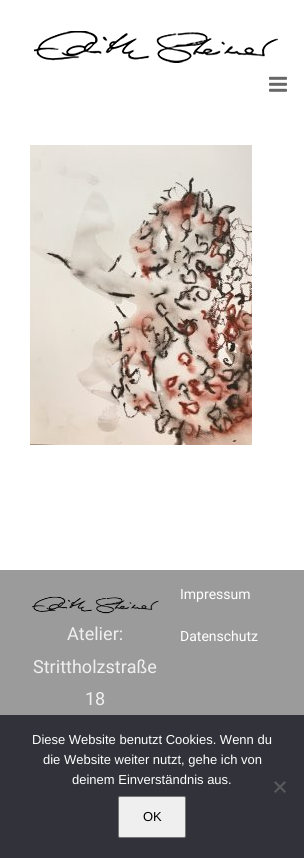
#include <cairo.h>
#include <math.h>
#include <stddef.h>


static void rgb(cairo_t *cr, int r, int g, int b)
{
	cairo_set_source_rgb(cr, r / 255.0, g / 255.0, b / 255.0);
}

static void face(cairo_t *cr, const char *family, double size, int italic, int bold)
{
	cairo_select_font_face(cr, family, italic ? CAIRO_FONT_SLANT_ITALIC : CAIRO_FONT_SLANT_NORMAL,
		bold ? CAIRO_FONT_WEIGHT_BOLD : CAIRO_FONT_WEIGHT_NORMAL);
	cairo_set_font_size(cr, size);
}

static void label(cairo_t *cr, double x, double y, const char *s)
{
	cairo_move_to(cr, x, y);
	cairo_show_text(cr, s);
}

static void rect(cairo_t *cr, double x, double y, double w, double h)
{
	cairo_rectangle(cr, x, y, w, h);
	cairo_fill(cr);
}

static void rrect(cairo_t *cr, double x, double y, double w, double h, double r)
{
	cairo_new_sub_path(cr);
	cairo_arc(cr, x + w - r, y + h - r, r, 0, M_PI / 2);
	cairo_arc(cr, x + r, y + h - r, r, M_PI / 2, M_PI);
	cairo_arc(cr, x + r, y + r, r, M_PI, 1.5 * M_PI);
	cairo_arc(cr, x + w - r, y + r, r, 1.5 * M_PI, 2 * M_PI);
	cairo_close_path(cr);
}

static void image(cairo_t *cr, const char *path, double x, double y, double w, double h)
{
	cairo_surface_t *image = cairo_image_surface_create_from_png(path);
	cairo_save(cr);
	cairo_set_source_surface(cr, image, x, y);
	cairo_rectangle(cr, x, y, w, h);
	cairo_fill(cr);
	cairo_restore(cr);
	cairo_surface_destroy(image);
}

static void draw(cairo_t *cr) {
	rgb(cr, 255, 255, 255);
	cairo_paint(cr);
	image(cr, "image0.png", 34, 31, 244, 32);
	image(cr, "image1.png", 269, 76, 18, 16);
	image(cr, "image2.png", 30, 145, 222, 300);
	rgb(cr, 155, 155, 155);
	rect(cr, 0, 570, 304, 145);
	face(cr, "Heebo", 14, 0, 0);
	rgb(cr, 255, 255, 255);
	label(cr, 180, 599, "Impressum");
	label(cr, 180, 641, "Datenschutz");
	image(cr, "image3.png", 32, 596, 127, 18);
	face(cr, "Heebo", 18, 0, 0);
	rgb(cr, 239, 239, 239);
	label(cr, 67, 640, "Atelier:");
	label(cr, 33, 673, "Strittholzstraße");
	label(cr, 85, 705, "18");
	rgb(cr, 50, 50, 58);
	rect(cr, 0, 715, 304, 143);
	face(cr, "Liberation Sans", 13, 0, 0);
	rgb(cr, 255, 255, 255);
	label(cr, 32, 744, "Diese Website benutzt Cookies. Wenn du");
	label(cr, 43, 764, "die Website weiter nutzt, gehe ich von");
	label(cr, 72, 784, "deinem Einverständnis aus.");
	rgb(cr, 89, 89, 93);
	cairo_new_path(cr);
	cairo_move_to(cr, 284.5, 781);
	cairo_line_to(cr, 286, 782.5);
	cairo_line_to(cr, 275.5, 793);
	cairo_line_to(cr, 274, 791.5);
	cairo_close_path(cr);
	cairo_fill(cr);
	cairo_new_path(cr);
	cairo_move_to(cr, 274, 782.5);
	cairo_line_to(cr, 275.5, 781);
	cairo_line_to(cr, 286, 791.5);
	cairo_line_to(cr, 284.5, 793);
	cairo_close_path(cr);
	cairo_fill(cr);
	rgb(cr, 239, 239, 239);
	rrect(cr, 118.5, 796.5, 67, 41, 1.5);
	cairo_fill_preserve(cr);
	rgb(cr, 118, 118, 118);
	cairo_set_line_width(cr, 1);
	cairo_stroke(cr);
	rgb(cr, 0, 0, 0);
	label(cr, 143, 821, "OK");
}

int main(void) {
	cairo_surface_t *surface = cairo_image_surface_create(CAIRO_FORMAT_RGB24, 304, 858);
	cairo_t *cr = cairo_create(surface);
	cairo_font_options_t *options = cairo_font_options_create();
	cairo_font_options_set_hint_metrics(options, CAIRO_HINT_METRICS_OFF);
	cairo_font_options_set_hint_style(options, CAIRO_HINT_STYLE_NONE);
	cairo_set_font_options(cr, options);
	cairo_set_miter_limit(cr, 4);
	draw(cr);
	cairo_surface_write_to_png(surface, "render.png");
	cairo_font_options_destroy(options);
	cairo_destroy(cr);
	cairo_surface_destroy(surface);
	return 0;
}
